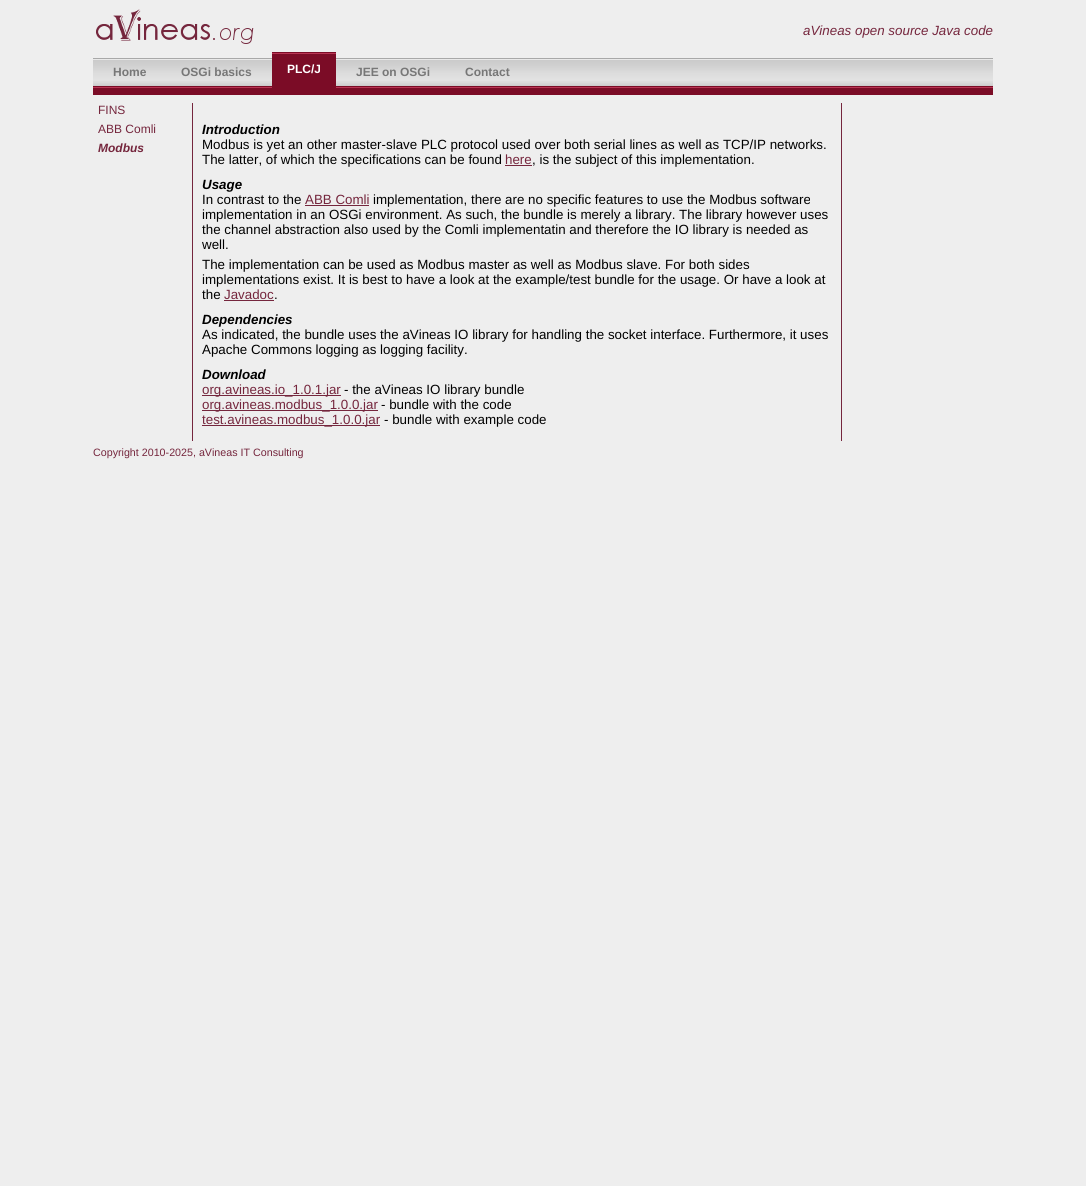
#include <cairo.h>
#include <math.h>
#include <stddef.h>


static void rgb(cairo_t *cr, int r, int g, int b)
{
	cairo_set_source_rgb(cr, r / 255.0, g / 255.0, b / 255.0);
}

static void face(cairo_t *cr, const char *family, double size, int italic, int bold)
{
	cairo_select_font_face(cr, family, italic ? CAIRO_FONT_SLANT_ITALIC : CAIRO_FONT_SLANT_NORMAL,
		bold ? CAIRO_FONT_WEIGHT_BOLD : CAIRO_FONT_WEIGHT_NORMAL);
	cairo_set_font_size(cr, size);
}

static void label(cairo_t *cr, double x, double y, const char *s)
{
	cairo_move_to(cr, x, y);
	cairo_show_text(cr, s);
}

static void rect(cairo_t *cr, double x, double y, double w, double h)
{
	cairo_rectangle(cr, x, y, w, h);
	cairo_fill(cr);
}

static void image(cairo_t *cr, const char *path, double x, double y, double w, double h)
{
	cairo_surface_t *image = cairo_image_surface_create_from_png(path);
	cairo_save(cr);
	cairo_set_source_surface(cr, image, x, y);
	cairo_rectangle(cr, x, y, w, h);
	cairo_fill(cr);
	cairo_restore(cr);
	cairo_surface_destroy(image);
}

static void draw(cairo_t *cr) {
	rgb(cr, 238, 238, 238);
	cairo_paint(cr);
	image(cr, "image0.png", 96, 9, 158, 35);
	face(cr, "Liberation Sans", 13.35, 1, 0);
	rgb(cr, 117, 38, 61);
	label(cr, 803, 35, "aVineas open source Java code");
	image(cr, "image1.png", 93, 58, 900, 37);
	face(cr, "Liberation Sans", 12, 0, 1);
	rgb(cr, 119, 119, 119);
	label(cr, 113, 76, "Home");
	label(cr, 181, 76, "OSGi basics");
	image(cr, "image2.png", 272, 52, 64, 43);
	rgb(cr, 255, 255, 255);
	label(cr, 287, 73, "PLC/J");
	rgb(cr, 119, 119, 119);
	label(cr, 356, 76, "JEE on OSGi");
	label(cr, 465, 76, "Contact");
	face(cr, "Liberation Sans", 12, 0, 0);
	rgb(cr, 117, 38, 61);
	label(cr, 98, 114, "FINS");
	label(cr, 98, 133, "ABB Comli");
	face(cr, "Liberation Sans", 12, 1, 1);
	label(cr, 98, 152, "Modbus");
	rect(cr, 841, 103, 1, 338);
	rect(cr, 192, 103, 1, 338);
	face(cr, "Liberation Sans", 13.35, 1, 1);
	rgb(cr, 0, 0, 0);
	label(cr, 202, 134, "Introduction");
	face(cr, "Liberation Sans", 13.35, 0, 0);
	label(cr, 202, 149, "Modbus is yet an other master-slave PLC protocol used over both serial lines as well as TCP/IP networks.");
	label(cr, 202, 164, "The latter, of which the specifications can be found");
	rgb(cr, 117, 38, 61);
	label(cr, 505, 164, "here");
	rect(cr, 505, 165, 27, 1);
	rgb(cr, 0, 0, 0);
	label(cr, 532, 164, ", is the subject of this implementation.");
	face(cr, "Liberation Sans", 13.35, 1, 1);
	label(cr, 202, 189, "Usage");
	face(cr, "Liberation Sans", 13.35, 0, 0);
	label(cr, 202, 204, "In contrast to the");
	rgb(cr, 117, 38, 61);
	label(cr, 305, 204, "ABB Comli");
	rect(cr, 305, 205, 64, 1);
	rgb(cr, 0, 0, 0);
	label(cr, 373, 204, "implementation, there are no specific features to use the Modbus software");
	label(cr, 202, 219, "implementation in an OSGi environment. As such, the bundle is merely a library. The library however uses");
	label(cr, 202, 234, "the channel abstraction also used by the Comli implementatin and therefore the IO library is needed as");
	label(cr, 202, 249, "well.");
	label(cr, 202, 269, "The implementation can be used as Modbus master as well as Modbus slave. For both sides");
	label(cr, 202, 284, "implementations exist. It is best to have a look at the example/test bundle for the usage. Or have a look at");
	label(cr, 202, 299, "the");
	rgb(cr, 117, 38, 61);
	label(cr, 224, 299, "Javadoc");
	rect(cr, 224, 300, 50, 1);
	rgb(cr, 0, 0, 0);
	label(cr, 274, 299, ".");
	face(cr, "Liberation Sans", 13.35, 1, 1);
	label(cr, 202, 324, "Dependencies");
	face(cr, "Liberation Sans", 13.35, 0, 0);
	label(cr, 202, 339, "As indicated, the bundle uses the aVineas IO library for handling the socket interface. Furthermore, it uses");
	label(cr, 202, 354, "Apache Commons logging as logging facility.");
	face(cr, "Liberation Sans", 13.35, 1, 1);
	label(cr, 202, 379, "Download");
	rgb(cr, 117, 38, 61);
	rect(cr, 202, 395, 139, 1);
	face(cr, "Liberation Sans", 13.35, 0, 0);
	label(cr, 202, 394, "org.avineas.io_1.0.1.jar");
	rgb(cr, 0, 0, 0);
	label(cr, 344, 394, "- the aVineas IO library bundle");
	rgb(cr, 117, 38, 61);
	rect(cr, 202, 410, 176, 1);
	label(cr, 202, 409, "org.avineas.modbus_1.0.0.jar");
	rgb(cr, 0, 0, 0);
	label(cr, 381, 409, "- bundle with the code");
	rgb(cr, 117, 38, 61);
	rect(cr, 202, 425, 178, 1);
	label(cr, 202, 424, "test.avineas.modbus_1.0.0.jar");
	rgb(cr, 0, 0, 0);
	label(cr, 384, 424, "- bundle with example code");
	face(cr, "Liberation Sans", 10.7, 0, 0);
	rgb(cr, 117, 38, 61);
	label(cr, 93, 456, "Copyright 2010-2025, aVineas IT Consulting");
}

int main(void) {
	cairo_surface_t *surface = cairo_image_surface_create(CAIRO_FORMAT_RGB24, 1086, 1186);
	cairo_t *cr = cairo_create(surface);
	cairo_font_options_t *options = cairo_font_options_create();
	cairo_font_options_set_hint_metrics(options, CAIRO_HINT_METRICS_OFF);
	cairo_font_options_set_hint_style(options, CAIRO_HINT_STYLE_NONE);
	cairo_set_font_options(cr, options);
	cairo_set_miter_limit(cr, 4);
	draw(cr);
	cairo_surface_write_to_png(surface, "render.png");
	cairo_font_options_destroy(options);
	cairo_destroy(cr);
	cairo_surface_destroy(surface);
	return 0;
}
